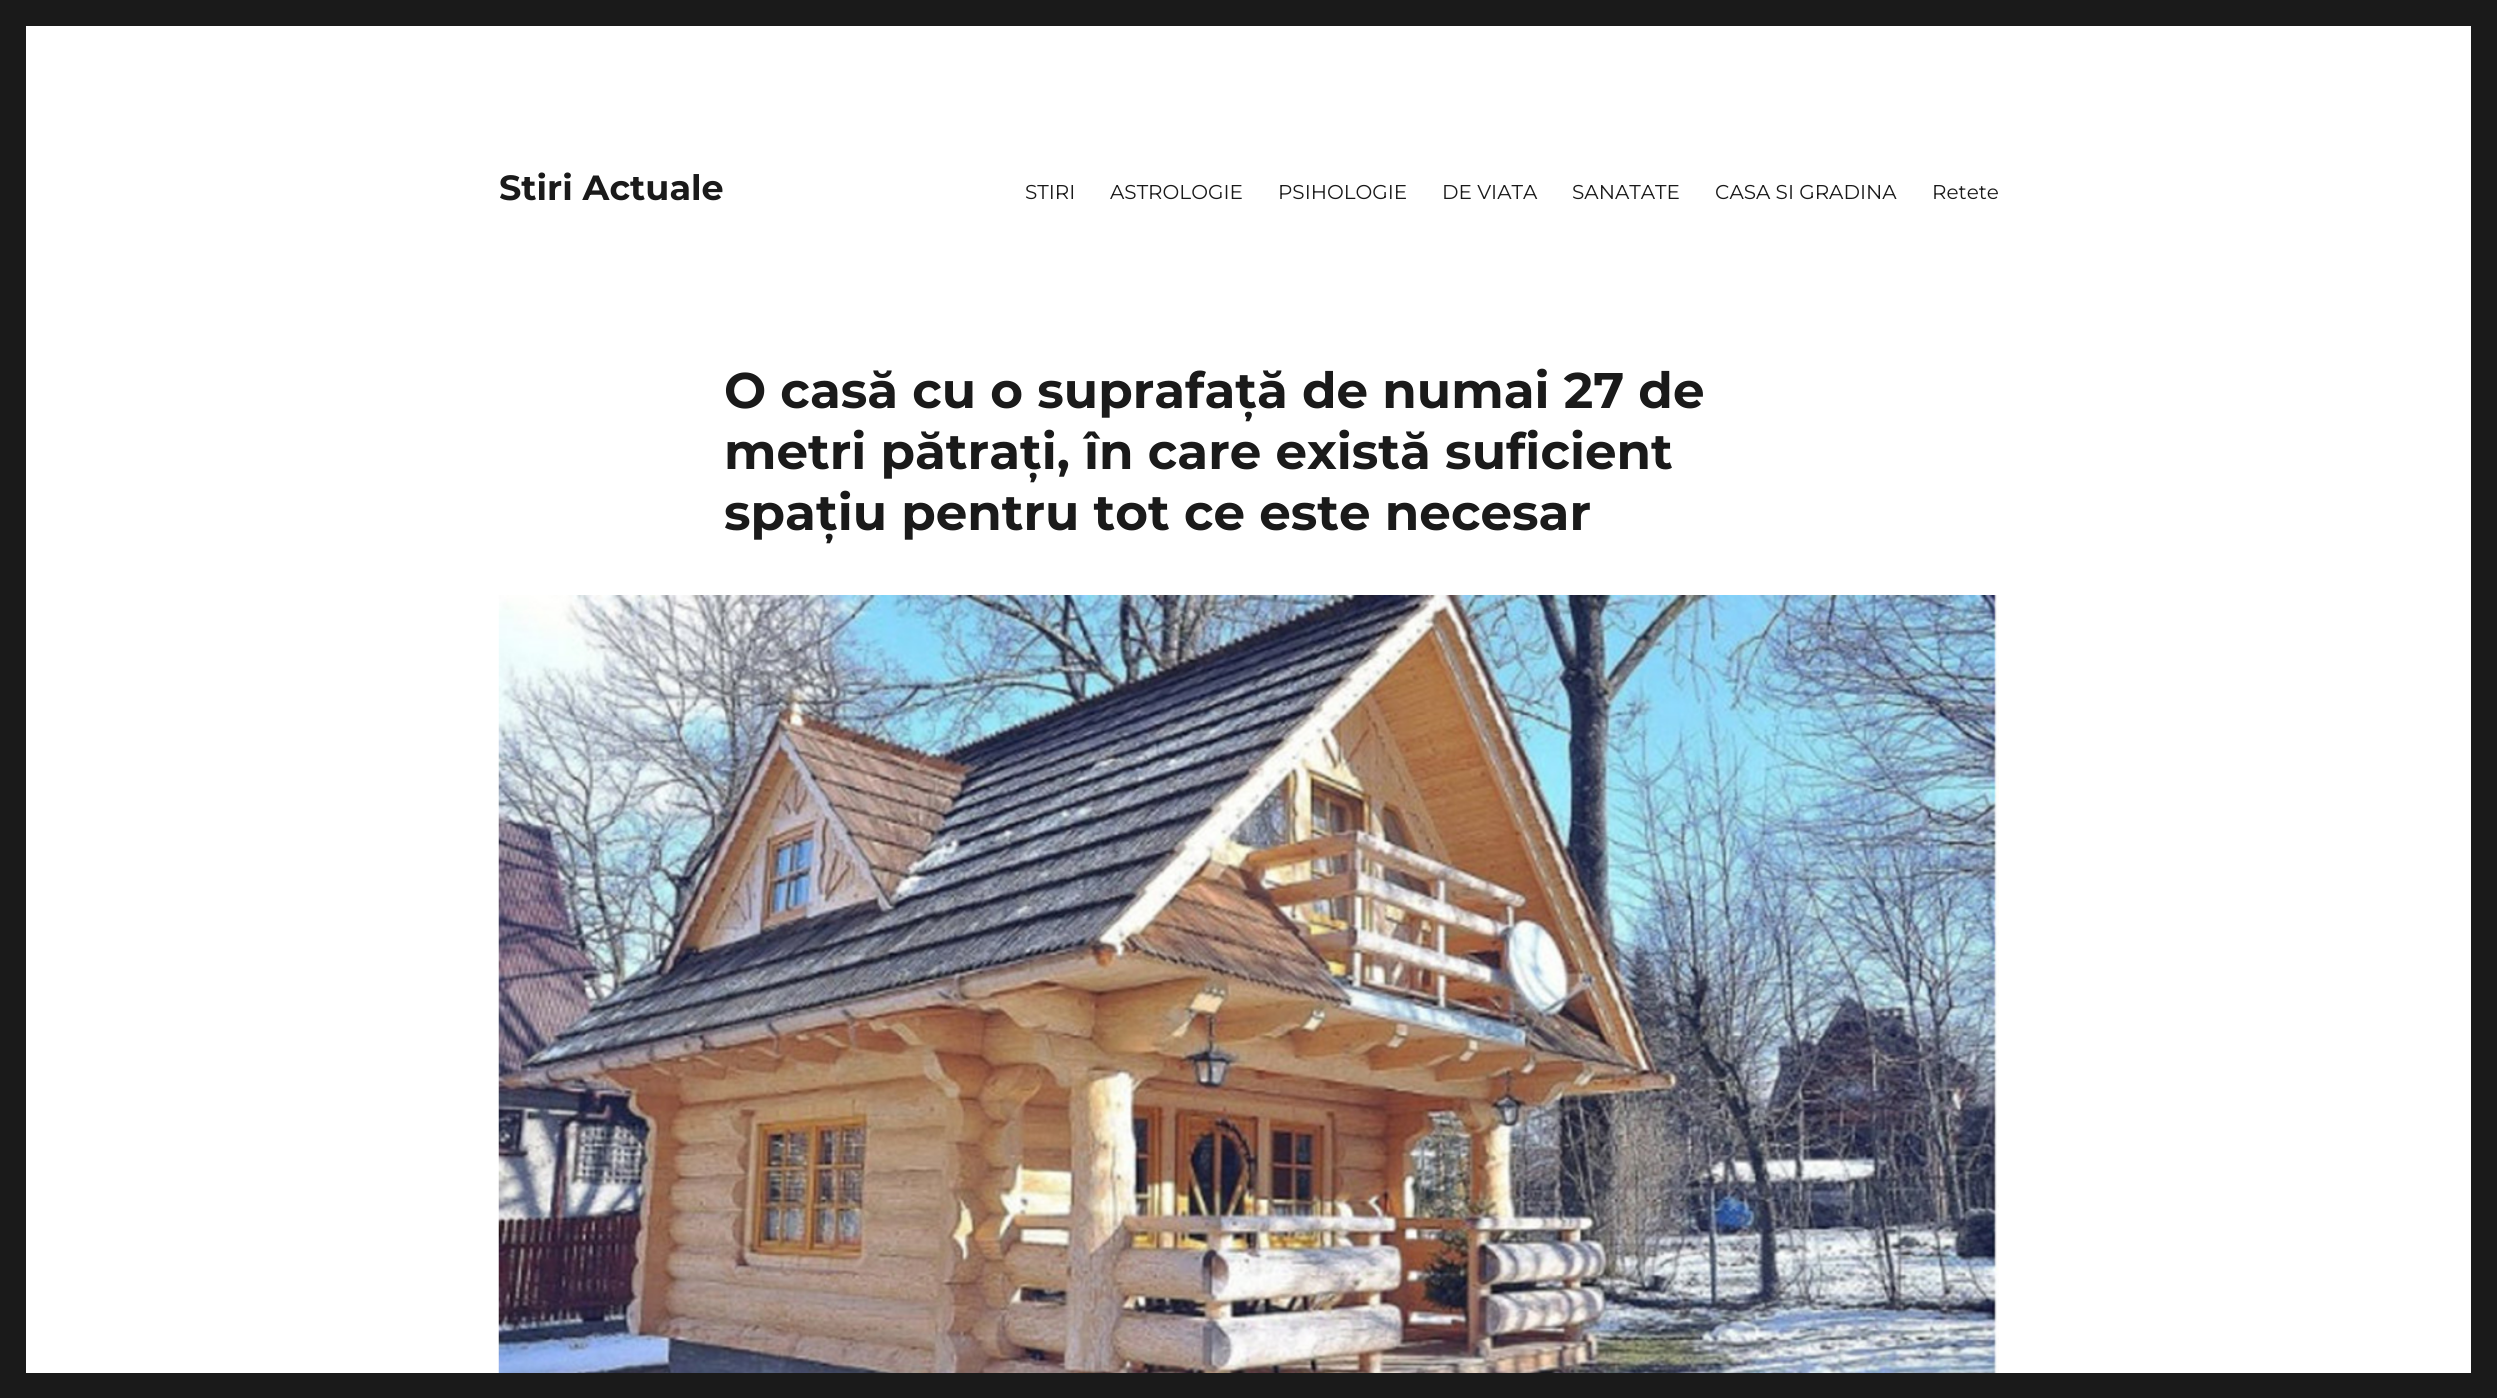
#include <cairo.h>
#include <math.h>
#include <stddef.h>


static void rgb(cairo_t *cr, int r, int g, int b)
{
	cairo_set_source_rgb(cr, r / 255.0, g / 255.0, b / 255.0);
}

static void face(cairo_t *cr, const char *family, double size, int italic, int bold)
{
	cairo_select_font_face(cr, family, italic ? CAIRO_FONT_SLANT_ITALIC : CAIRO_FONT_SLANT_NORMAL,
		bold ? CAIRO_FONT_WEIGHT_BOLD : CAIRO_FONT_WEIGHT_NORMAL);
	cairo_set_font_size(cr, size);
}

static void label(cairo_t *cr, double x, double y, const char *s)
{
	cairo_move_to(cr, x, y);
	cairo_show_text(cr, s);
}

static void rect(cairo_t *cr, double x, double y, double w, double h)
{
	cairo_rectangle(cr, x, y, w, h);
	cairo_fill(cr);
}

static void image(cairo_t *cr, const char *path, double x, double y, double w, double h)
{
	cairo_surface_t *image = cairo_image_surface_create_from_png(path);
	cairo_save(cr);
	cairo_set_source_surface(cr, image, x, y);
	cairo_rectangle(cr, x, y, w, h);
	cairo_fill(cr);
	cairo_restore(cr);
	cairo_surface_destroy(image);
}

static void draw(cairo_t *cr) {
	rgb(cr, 26, 26, 26);
	cairo_paint(cr);
	rgb(cr, 255, 255, 255);
	rect(cr, 26, 26, 2445, 1347);
	face(cr, "Montserrat Thin", 35, 0, 0);
	rgb(cr, 26, 26, 26);
	label(cr, 499, 200, "Stiri Actuale");
	face(cr, "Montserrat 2 Thin", 20, 0, 0);
	label(cr, 1025, 199, "STIRI");
	label(cr, 1110, 199, "ASTROLOGIE");
	label(cr, 1278, 199, "PSIHOLOGIE");
	label(cr, 1442, 199, "DE VIATA");
	label(cr, 1572, 199, "SANATATE");
	label(cr, 1715, 199, "CASA SI GRADINA");
	label(cr, 1932, 199, "Retete");
	face(cr, "Montserrat Thin", 50, 0, 0);
	label(cr, 724, 408, "O casă cu o suprafață de numai 27 de");
	label(cr, 724, 469, "metri pătrați, în care există suficient");
	label(cr, 724, 530, "spațiu pentru tot ce este necesar");
	image(cr, "image0.png", 498, 595, 1501, 778);
}

int main(void) {
	cairo_surface_t *surface = cairo_image_surface_create(CAIRO_FORMAT_RGB24, 2497, 1398);
	cairo_t *cr = cairo_create(surface);
	cairo_font_options_t *options = cairo_font_options_create();
	cairo_font_options_set_hint_metrics(options, CAIRO_HINT_METRICS_OFF);
	cairo_font_options_set_hint_style(options, CAIRO_HINT_STYLE_NONE);
	cairo_set_font_options(cr, options);
	cairo_set_miter_limit(cr, 4);
	draw(cr);
	cairo_surface_write_to_png(surface, "render.png");
	cairo_font_options_destroy(options);
	cairo_destroy(cr);
	cairo_surface_destroy(surface);
	return 0;
}
